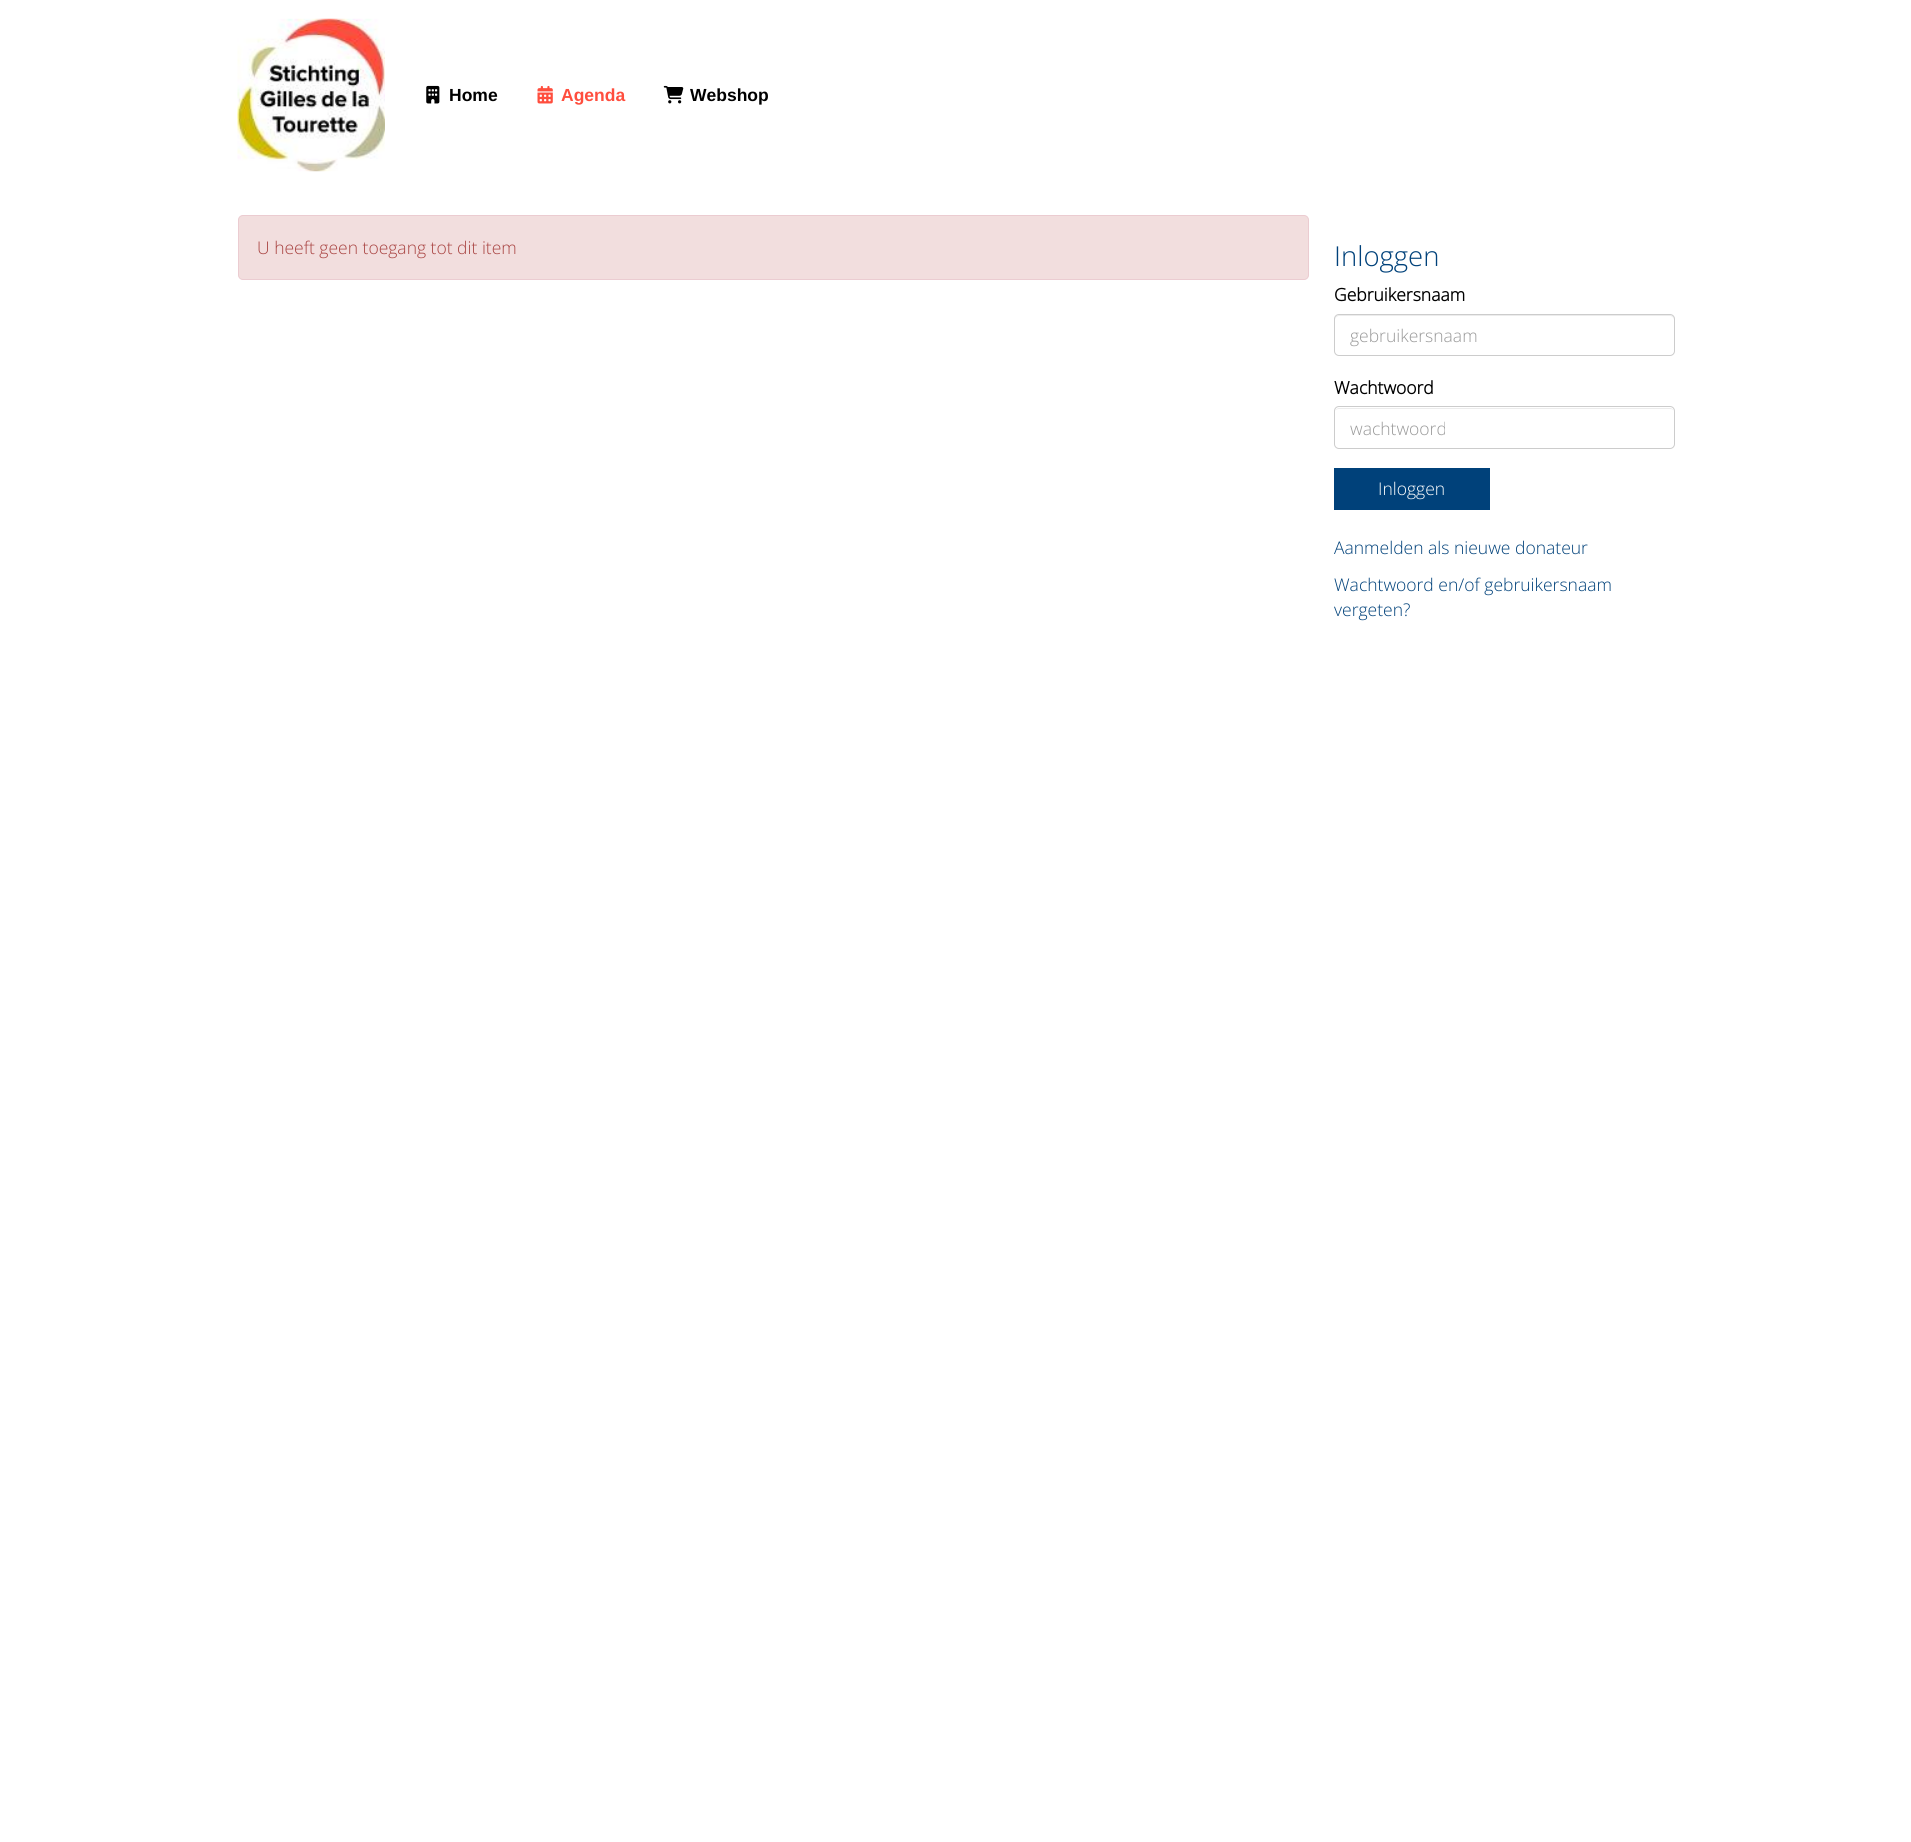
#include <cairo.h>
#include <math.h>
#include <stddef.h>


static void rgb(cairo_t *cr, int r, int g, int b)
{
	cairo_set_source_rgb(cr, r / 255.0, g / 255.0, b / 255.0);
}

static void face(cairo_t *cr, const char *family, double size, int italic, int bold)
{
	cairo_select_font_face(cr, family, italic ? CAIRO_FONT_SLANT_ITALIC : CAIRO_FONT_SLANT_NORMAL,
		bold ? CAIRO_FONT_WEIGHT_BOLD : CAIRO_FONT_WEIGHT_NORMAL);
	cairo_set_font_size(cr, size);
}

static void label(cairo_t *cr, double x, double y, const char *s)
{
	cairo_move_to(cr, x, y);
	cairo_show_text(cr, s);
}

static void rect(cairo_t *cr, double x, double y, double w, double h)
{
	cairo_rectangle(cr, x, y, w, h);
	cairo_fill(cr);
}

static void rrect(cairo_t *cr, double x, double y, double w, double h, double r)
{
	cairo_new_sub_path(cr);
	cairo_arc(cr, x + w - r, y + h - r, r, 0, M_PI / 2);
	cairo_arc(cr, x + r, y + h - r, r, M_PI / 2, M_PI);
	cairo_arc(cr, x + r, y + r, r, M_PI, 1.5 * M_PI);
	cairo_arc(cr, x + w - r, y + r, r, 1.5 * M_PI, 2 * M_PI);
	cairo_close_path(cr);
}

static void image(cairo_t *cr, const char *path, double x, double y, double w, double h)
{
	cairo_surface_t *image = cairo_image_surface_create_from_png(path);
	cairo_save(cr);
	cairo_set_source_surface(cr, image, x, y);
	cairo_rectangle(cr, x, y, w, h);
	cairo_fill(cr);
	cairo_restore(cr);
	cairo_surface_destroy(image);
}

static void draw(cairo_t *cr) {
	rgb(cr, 255, 255, 255);
	cairo_paint(cr);
	image(cr, "image0.png", 237, 18, 148, 154);
	image(cr, "image1.png", 426, 85, 14, 19);
	face(cr, "Liberation Sans", 17.5, 0, 1);
	rgb(cr, 0, 0, 0);
	label(cr, 449, 101, "Home");
	image(cr, "image2.png", 537, 85, 16, 19);
	rgb(cr, 255, 78, 62);
	label(cr, 561, 101, "Agenda");
	image(cr, "image3.png", 663, 85, 21, 19);
	rgb(cr, 0, 0, 0);
	label(cr, 690, 101, "Webshop");
	rgb(cr, 242, 222, 222);
	rrect(cr, 238.5, 215.5, 1070, 64, 4.5);
	cairo_fill_preserve(cr);
	rgb(cr, 235, 204, 209);
	cairo_set_line_width(cr, 1);
	cairo_stroke(cr);
	face(cr, "Open Sans Light", 17.5, 0, 0);
	rgb(cr, 169, 68, 66);
	label(cr, 257, 254, "U heeft geen toegang tot dit item");
	face(cr, "Open Sans Light", 27.5, 0, 0);
	rgb(cr, 0, 65, 122);
	label(cr, 1334, 266, "Inloggen");
	face(cr, "Open Sans", 17.5, 0, 1);
	rgb(cr, 0, 0, 0);
	label(cr, 1334, 301, "Gebruikersnaam");
	rgb(cr, 236, 236, 236);
	cairo_new_path(cr);
	cairo_move_to(cr, 1339, 316);
	cairo_line_to(cr, 1670, 316);
	cairo_curve_to(cr, 1672, 316, 1674, 318, 1674, 320);
	cairo_line_to(cr, 1674, 319);
	cairo_curve_to(cr, 1674, 317, 1672, 315, 1670, 315);
	cairo_line_to(cr, 1339, 315);
	cairo_curve_to(cr, 1337, 315, 1335, 317, 1335, 319);
	cairo_line_to(cr, 1335, 320);
	cairo_curve_to(cr, 1335, 318, 1337, 316, 1339, 316);
	cairo_close_path(cr);
	cairo_fill(cr);
	rrect(cr, 1334.5, 314.5, 340, 41, 4.5);
	rgb(cr, 204, 204, 204);
	cairo_stroke(cr);
	face(cr, "Open Sans Light", 17.5, 0, 0);
	rgb(cr, 153, 153, 153);
	label(cr, 1350, 342, "gebruikersnaam");
	face(cr, "Open Sans", 17.5, 0, 1);
	rgb(cr, 0, 0, 0);
	label(cr, 1334, 394, "Wachtwoord");
	rgb(cr, 236, 236, 236);
	cairo_new_path(cr);
	cairo_move_to(cr, 1339, 409);
	cairo_line_to(cr, 1670, 409);
	cairo_curve_to(cr, 1672, 409, 1674, 410, 1674, 412);
	cairo_curve_to(cr, 1674, 410, 1672, 408, 1670, 408);
	cairo_line_to(cr, 1339, 408);
	cairo_curve_to(cr, 1337, 408, 1335, 410, 1335, 412);
	cairo_curve_to(cr, 1335, 410, 1337, 409, 1339, 409);
	cairo_close_path(cr);
	cairo_fill(cr);
	rrect(cr, 1334.5, 406.5, 340, 42, 4.5);
	rgb(cr, 204, 204, 204);
	cairo_stroke(cr);
	face(cr, "Open Sans Light", 17.5, 0, 0);
	rgb(cr, 153, 153, 153);
	label(cr, 1350, 435, "wachtwoord");
	rgb(cr, 0, 65, 122);
	rect(cr, 1334, 468, 156, 42);
	rgb(cr, 255, 255, 255);
	label(cr, 1378, 495, "Inloggen");
	rgb(cr, 0, 65, 122);
	label(cr, 1334, 554, "Aanmelden als nieuwe donateur");
	label(cr, 1334, 591, "Wachtwoord en/of gebruikersnaam");
	label(cr, 1334, 616, "vergeten?");
}

int main(void) {
	cairo_surface_t *surface = cairo_image_surface_create(CAIRO_FORMAT_RGB24, 1911, 1842);
	cairo_t *cr = cairo_create(surface);
	cairo_font_options_t *options = cairo_font_options_create();
	cairo_font_options_set_hint_metrics(options, CAIRO_HINT_METRICS_OFF);
	cairo_font_options_set_hint_style(options, CAIRO_HINT_STYLE_NONE);
	cairo_set_font_options(cr, options);
	cairo_set_miter_limit(cr, 4);
	draw(cr);
	cairo_surface_write_to_png(surface, "render.png");
	cairo_font_options_destroy(options);
	cairo_destroy(cr);
	cairo_surface_destroy(surface);
	return 0;
}
